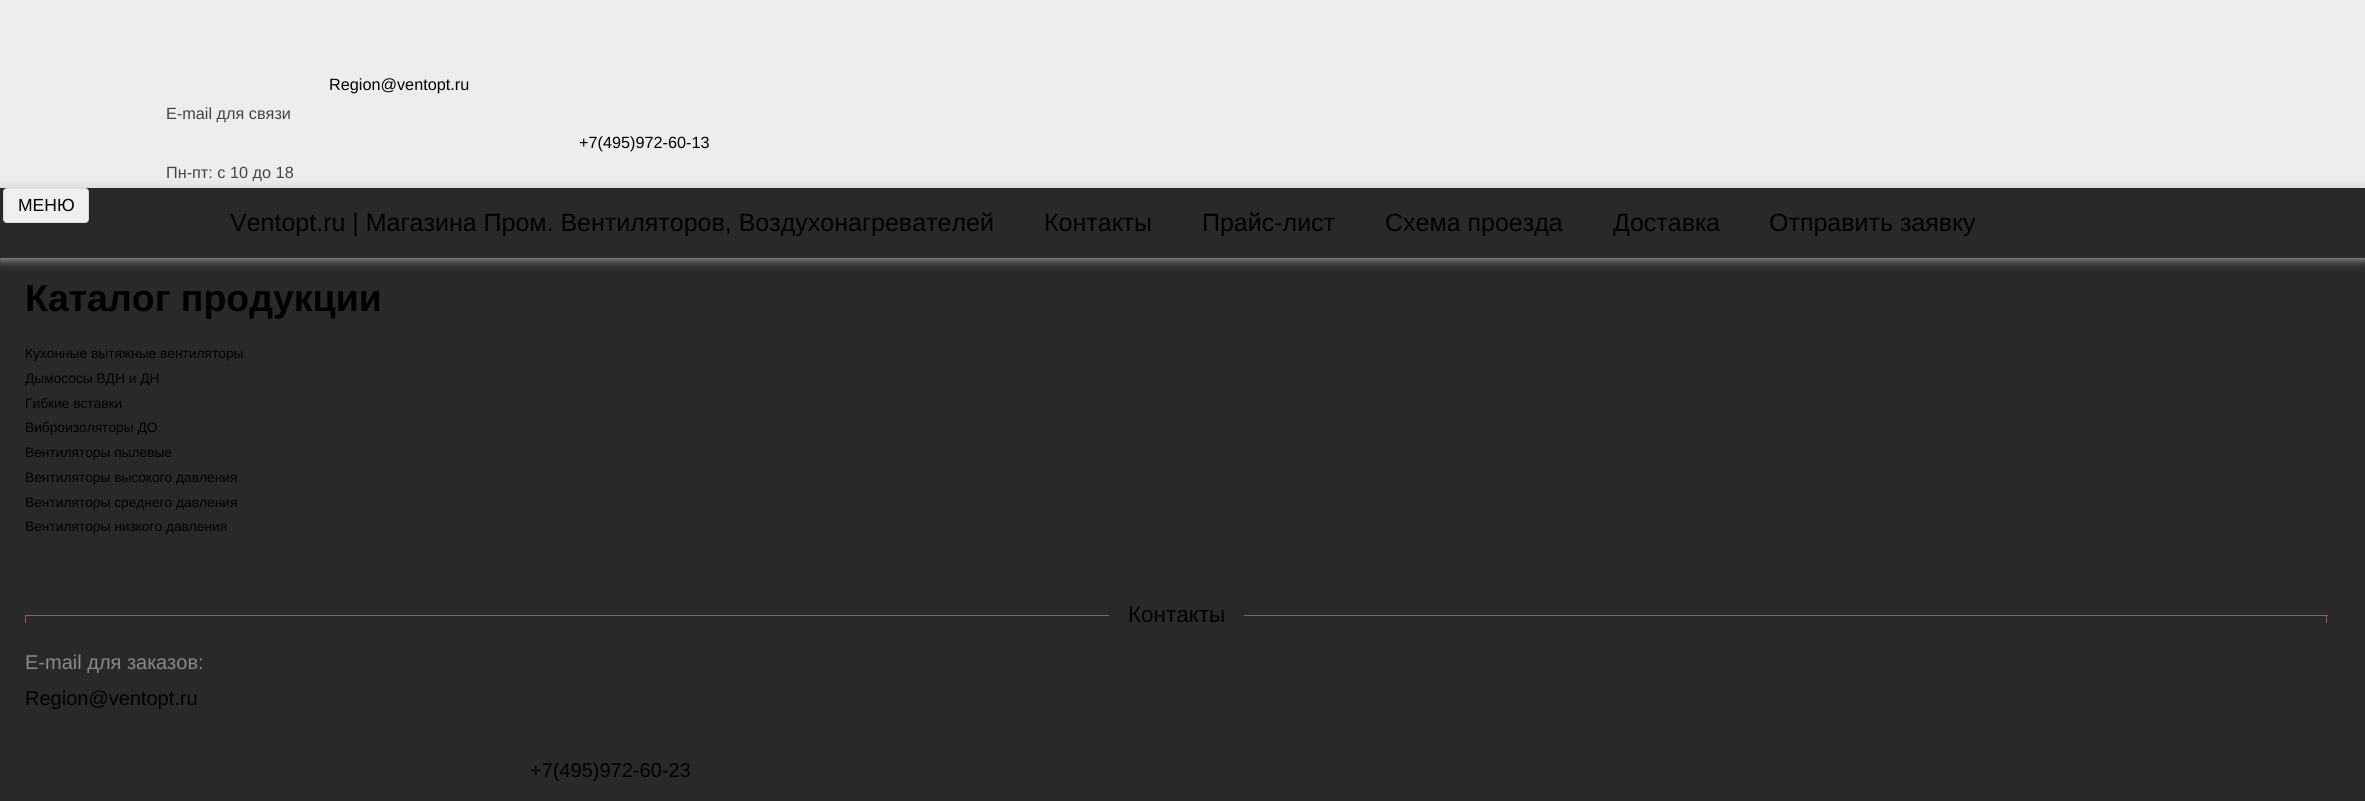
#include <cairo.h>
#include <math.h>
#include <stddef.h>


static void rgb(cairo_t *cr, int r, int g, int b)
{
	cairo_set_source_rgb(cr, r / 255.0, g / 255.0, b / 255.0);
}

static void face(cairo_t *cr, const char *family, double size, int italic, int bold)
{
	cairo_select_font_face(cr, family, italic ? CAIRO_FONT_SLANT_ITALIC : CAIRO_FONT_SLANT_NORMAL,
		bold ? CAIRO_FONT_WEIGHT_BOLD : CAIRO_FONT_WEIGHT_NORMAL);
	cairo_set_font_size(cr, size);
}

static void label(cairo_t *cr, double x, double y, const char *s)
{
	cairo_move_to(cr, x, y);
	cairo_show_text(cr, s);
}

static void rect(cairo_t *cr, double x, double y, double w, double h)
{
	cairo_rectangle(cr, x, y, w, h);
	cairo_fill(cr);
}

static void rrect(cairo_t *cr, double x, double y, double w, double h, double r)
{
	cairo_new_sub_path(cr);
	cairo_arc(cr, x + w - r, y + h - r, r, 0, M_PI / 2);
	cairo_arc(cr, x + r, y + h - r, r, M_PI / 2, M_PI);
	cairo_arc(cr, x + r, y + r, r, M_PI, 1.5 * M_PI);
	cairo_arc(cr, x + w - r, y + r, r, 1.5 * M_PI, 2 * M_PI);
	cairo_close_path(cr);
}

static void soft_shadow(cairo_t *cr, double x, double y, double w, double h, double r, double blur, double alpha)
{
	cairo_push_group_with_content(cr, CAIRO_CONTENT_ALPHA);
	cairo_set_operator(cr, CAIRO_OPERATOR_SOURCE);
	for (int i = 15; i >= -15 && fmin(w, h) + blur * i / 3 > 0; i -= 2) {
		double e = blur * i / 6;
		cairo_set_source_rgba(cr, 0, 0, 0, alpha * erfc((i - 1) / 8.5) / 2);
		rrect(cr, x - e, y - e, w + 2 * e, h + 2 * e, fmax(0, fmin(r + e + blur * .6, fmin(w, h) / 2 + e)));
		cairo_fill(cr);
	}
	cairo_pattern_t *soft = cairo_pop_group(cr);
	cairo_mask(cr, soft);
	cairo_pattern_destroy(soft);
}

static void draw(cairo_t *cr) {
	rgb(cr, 41, 41, 41);
	cairo_paint(cr);
	rgb(cr, 237, 237, 237);
	rect(cr, 0, 0, 2365, 188);
	face(cr, "Liberation Sans", 16.25, 0, 0);
	rgb(cr, 0, 0, 0);
	label(cr, 329, 90, "Region@ventopt.ru");
	rgb(cr, 68, 68, 68);
	label(cr, 166, 119, "E-mail для связи");
	rgb(cr, 0, 0, 0);
	label(cr, 579, 148, "+7(495)972-60-13");
	rgb(cr, 68, 68, 68);
	label(cr, 166, 178, "Пн-пт: с 10 до 18");
	cairo_save(cr);
	cairo_set_fill_rule(cr, CAIRO_FILL_RULE_EVEN_ODD);
	cairo_new_path(cr);
	cairo_move_to(cr, 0, 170);
	cairo_line_to(cr, 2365, 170);
	cairo_line_to(cr, 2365, 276);
	cairo_line_to(cr, 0, 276);
	cairo_close_path(cr);
	cairo_move_to(cr, 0, 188);
	cairo_line_to(cr, 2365, 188);
	cairo_line_to(cr, 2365, 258);
	cairo_line_to(cr, 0, 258);
	cairo_close_path(cr);
	cairo_clip(cr);
	rgb(cr, 204, 204, 204);
	soft_shadow(cr, 0, 188, 2365, 70, 0, 5.5, 1);
	cairo_restore(cr);
	rgb(cr, 239, 239, 239);
	rrect(cr, 3.5, 188.5, 85, 34, 3.5);
	cairo_fill_preserve(cr);
	rgb(cr, 218, 218, 218);
	cairo_set_line_width(cr, 1);
	cairo_stroke(cr);
	face(cr, "Liberation Sans", 17.5, 0, 0);
	rgb(cr, 0, 0, 0);
	label(cr, 18, 211, "МЕНЮ");
	face(cr, "Liberation Sans", 25, 0, 0);
	label(cr, 230, 231, "Ventopt.ru | Магазина Пром. Вентиляторов, Воздухонагревателей");
	label(cr, 1044, 231, "Контакты");
	label(cr, 1202, 231, "Прайс-лист");
	label(cr, 1385, 231, "Схема проезда");
	label(cr, 1613, 231, "Доставка");
	label(cr, 1769, 231, "Отправить заявку");
	face(cr, "Liberation Sans", 37.5, 0, 1);
	label(cr, 25, 311, "Каталог продукции");
	face(cr, "Liberation Sans", 13.75, 0, 0);
	label(cr, 25, 358, "Кухонные вытяжные вентиляторы");
	label(cr, 25, 383, "Дымососы ВДН и ДН");
	label(cr, 25, 408, "Гибкие вставки");
	label(cr, 25, 432, "Виброизоляторы ДО");
	label(cr, 25, 457, "Вентиляторы пылевые");
	label(cr, 25, 482, "Вентиляторы высокого давления");
	label(cr, 25, 507, "Вентиляторы среднего давления");
	label(cr, 25, 531, "Вентиляторы низкого давления");
	rgb(cr, 171, 86, 79);
	rect(cr, 25, 615, 1084, 1);
	rect(cr, 25, 615, 1, 8);
	face(cr, "Liberation Sans", 22.5, 0, 0);
	rgb(cr, 0, 0, 0);
	label(cr, 1128, 622, "Контакты");
	rgb(cr, 171, 86, 79);
	rect(cr, 1244, 615, 1084, 1);
	rect(cr, 2326, 615, 1, 8);
	face(cr, "Liberation Sans", 20, 0, 0);
	rgb(cr, 136, 136, 136);
	label(cr, 25, 669, "E-mail для заказов:");
	rgb(cr, 0, 0, 0);
	label(cr, 25, 705, "Region@ventopt.ru");
	label(cr, 530, 777, "+7(495)972-60-23");
}

int main(void) {
	cairo_surface_t *surface = cairo_image_surface_create(CAIRO_FORMAT_RGB24, 2365, 801);
	cairo_t *cr = cairo_create(surface);
	cairo_font_options_t *options = cairo_font_options_create();
	cairo_font_options_set_hint_metrics(options, CAIRO_HINT_METRICS_OFF);
	cairo_font_options_set_hint_style(options, CAIRO_HINT_STYLE_NONE);
	cairo_set_font_options(cr, options);
	cairo_set_miter_limit(cr, 4);
	draw(cr);
	cairo_surface_write_to_png(surface, "render.png");
	cairo_font_options_destroy(options);
	cairo_destroy(cr);
	cairo_surface_destroy(surface);
	return 0;
}
